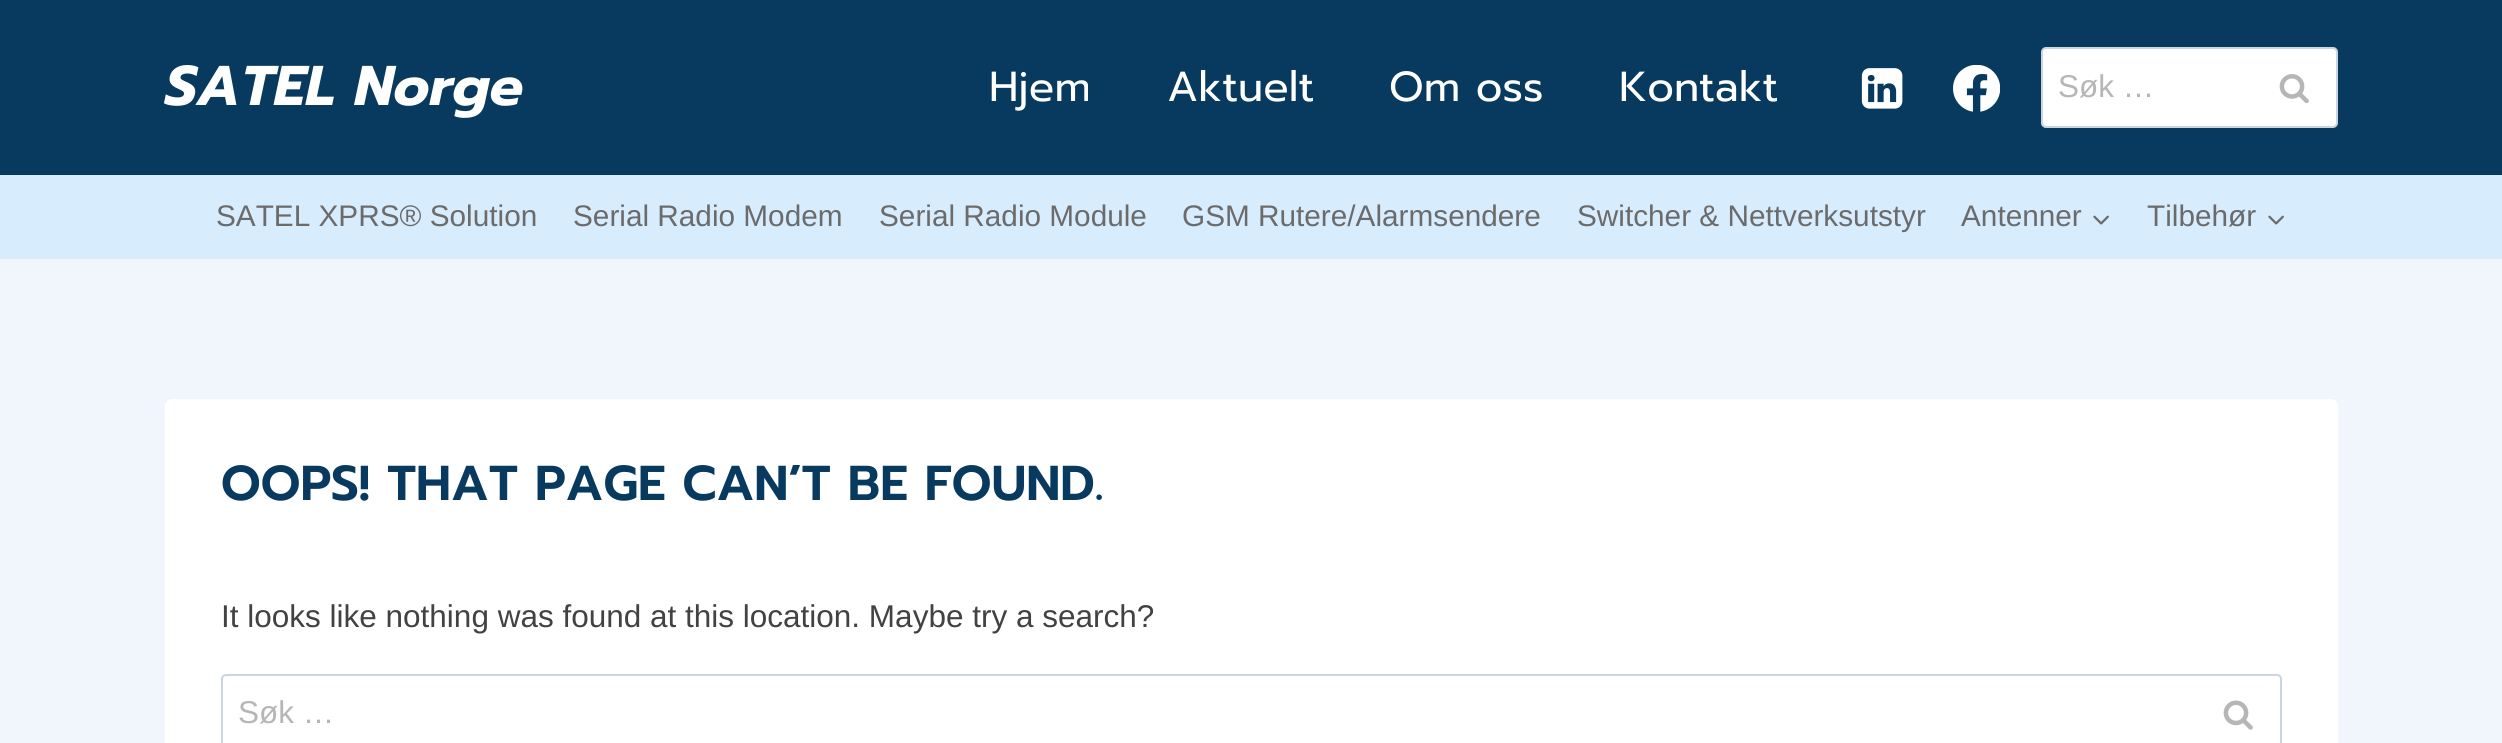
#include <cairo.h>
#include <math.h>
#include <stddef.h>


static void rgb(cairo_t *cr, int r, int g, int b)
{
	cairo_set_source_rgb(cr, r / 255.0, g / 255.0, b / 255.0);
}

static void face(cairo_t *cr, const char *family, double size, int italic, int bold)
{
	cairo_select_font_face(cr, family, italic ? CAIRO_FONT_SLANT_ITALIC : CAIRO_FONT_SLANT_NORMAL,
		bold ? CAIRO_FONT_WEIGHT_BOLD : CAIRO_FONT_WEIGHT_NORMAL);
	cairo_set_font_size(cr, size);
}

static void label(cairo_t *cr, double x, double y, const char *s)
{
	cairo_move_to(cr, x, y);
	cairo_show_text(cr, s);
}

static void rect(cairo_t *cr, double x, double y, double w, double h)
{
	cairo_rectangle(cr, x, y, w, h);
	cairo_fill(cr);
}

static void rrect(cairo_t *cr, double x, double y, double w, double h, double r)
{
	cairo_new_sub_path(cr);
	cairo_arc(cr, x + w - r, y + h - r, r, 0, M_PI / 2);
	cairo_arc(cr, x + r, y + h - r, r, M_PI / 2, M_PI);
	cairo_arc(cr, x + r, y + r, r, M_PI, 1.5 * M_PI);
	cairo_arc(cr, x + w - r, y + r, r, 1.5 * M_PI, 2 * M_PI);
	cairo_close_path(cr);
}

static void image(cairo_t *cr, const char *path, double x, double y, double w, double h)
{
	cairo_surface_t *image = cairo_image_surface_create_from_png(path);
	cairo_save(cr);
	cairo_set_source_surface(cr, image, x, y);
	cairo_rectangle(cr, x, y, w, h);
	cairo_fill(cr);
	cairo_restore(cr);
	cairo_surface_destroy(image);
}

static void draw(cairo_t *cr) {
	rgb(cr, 241, 245, 252);
	cairo_paint(cr);
	rgb(cr, 7, 58, 94);
	rect(cr, 0, 0, 2502, 175);
	face(cr, "Prompt", 56, 1, 1);
	rgb(cr, 255, 255, 255);
	label(cr, 165, 105, "SATEL Norge");
	face(cr, "Prompt", 42, 0, 0);
	label(cr, 989, 101, "Hjem");
	label(cr, 1167, 101, "Aktuelt");
	label(cr, 1389, 101, "Om oss");
	label(cr, 1619, 101, "Kontakt");
	image(cr, "image0.png", 1861, 68, 42, 41);
	image(cr, "image1.png", 1953, 65, 47, 47);
	rrect(cr, 2042, 48, 295, 79, 4);
	cairo_fill_preserve(cr);
	rgb(cr, 203, 213, 224);
	cairo_stroke(cr);
	face(cr, "Liberation Sans", 31.5, 0, 0);
	rgb(cr, 182, 182, 182);
	label(cr, 2058, 97, "Søk …");
	image(cr, "image2.png", 2279, 74, 30, 29);
	rgb(cr, 215, 236, 252);
	rect(cr, 0, 175, 2502, 84);
	face(cr, "Liberation Sans", 29.75, 0, 0);
	rgb(cr, 107, 107, 107);
	label(cr, 216, 226, "SATEL XPRS® Solution");
	label(cr, 573, 226, "Serial Radio Modem");
	label(cr, 879, 226, "Serial Radio Module");
	label(cr, 1182, 226, "GSM Rutere/Alarmsendere");
	label(cr, 1577, 226, "Switcher & Nettverksutstyr");
	label(cr, 1961, 226, "Antenner");
	image(cr, "image3.png", 2093, 215, 16, 10);
	label(cr, 2147, 226, "Tilbehør");
	image(cr, "image3.png", 2268, 215, 16, 10);
	rgb(cr, 255, 255, 255);
	rrect(cr, 165, 399, 2173, 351, 7);
	cairo_fill(cr);
	face(cr, "Prompt SemiBold", 49, 0, 0);
	rgb(cr, 7, 58, 94);
	label(cr, 221, 500, "OOPS! THAT PAGE CAN’T BE FOUND.");
	face(cr, "Liberation Sans", 31.5, 0, 0);
	rgb(cr, 66, 66, 66);
	label(cr, 221, 627, "It looks like nothing was found at this location. Maybe try a search?");
	rrect(cr, 222, 675, 2059, 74, 4);
	rgb(cr, 203, 213, 224);
	cairo_stroke(cr);
	rgb(cr, 182, 182, 182);
	label(cr, 238, 723, "Søk …");
	image(cr, "image4.png", 2223, 700, 30, 30);
}

int main(void) {
	cairo_surface_t *surface = cairo_image_surface_create(CAIRO_FORMAT_RGB24, 2502, 743);
	cairo_t *cr = cairo_create(surface);
	cairo_font_options_t *options = cairo_font_options_create();
	cairo_font_options_set_hint_metrics(options, CAIRO_HINT_METRICS_OFF);
	cairo_font_options_set_hint_style(options, CAIRO_HINT_STYLE_NONE);
	cairo_set_font_options(cr, options);
	cairo_set_miter_limit(cr, 4);
	draw(cr);
	cairo_surface_write_to_png(surface, "render.png");
	cairo_font_options_destroy(options);
	cairo_destroy(cr);
	cairo_surface_destroy(surface);
	return 0;
}
